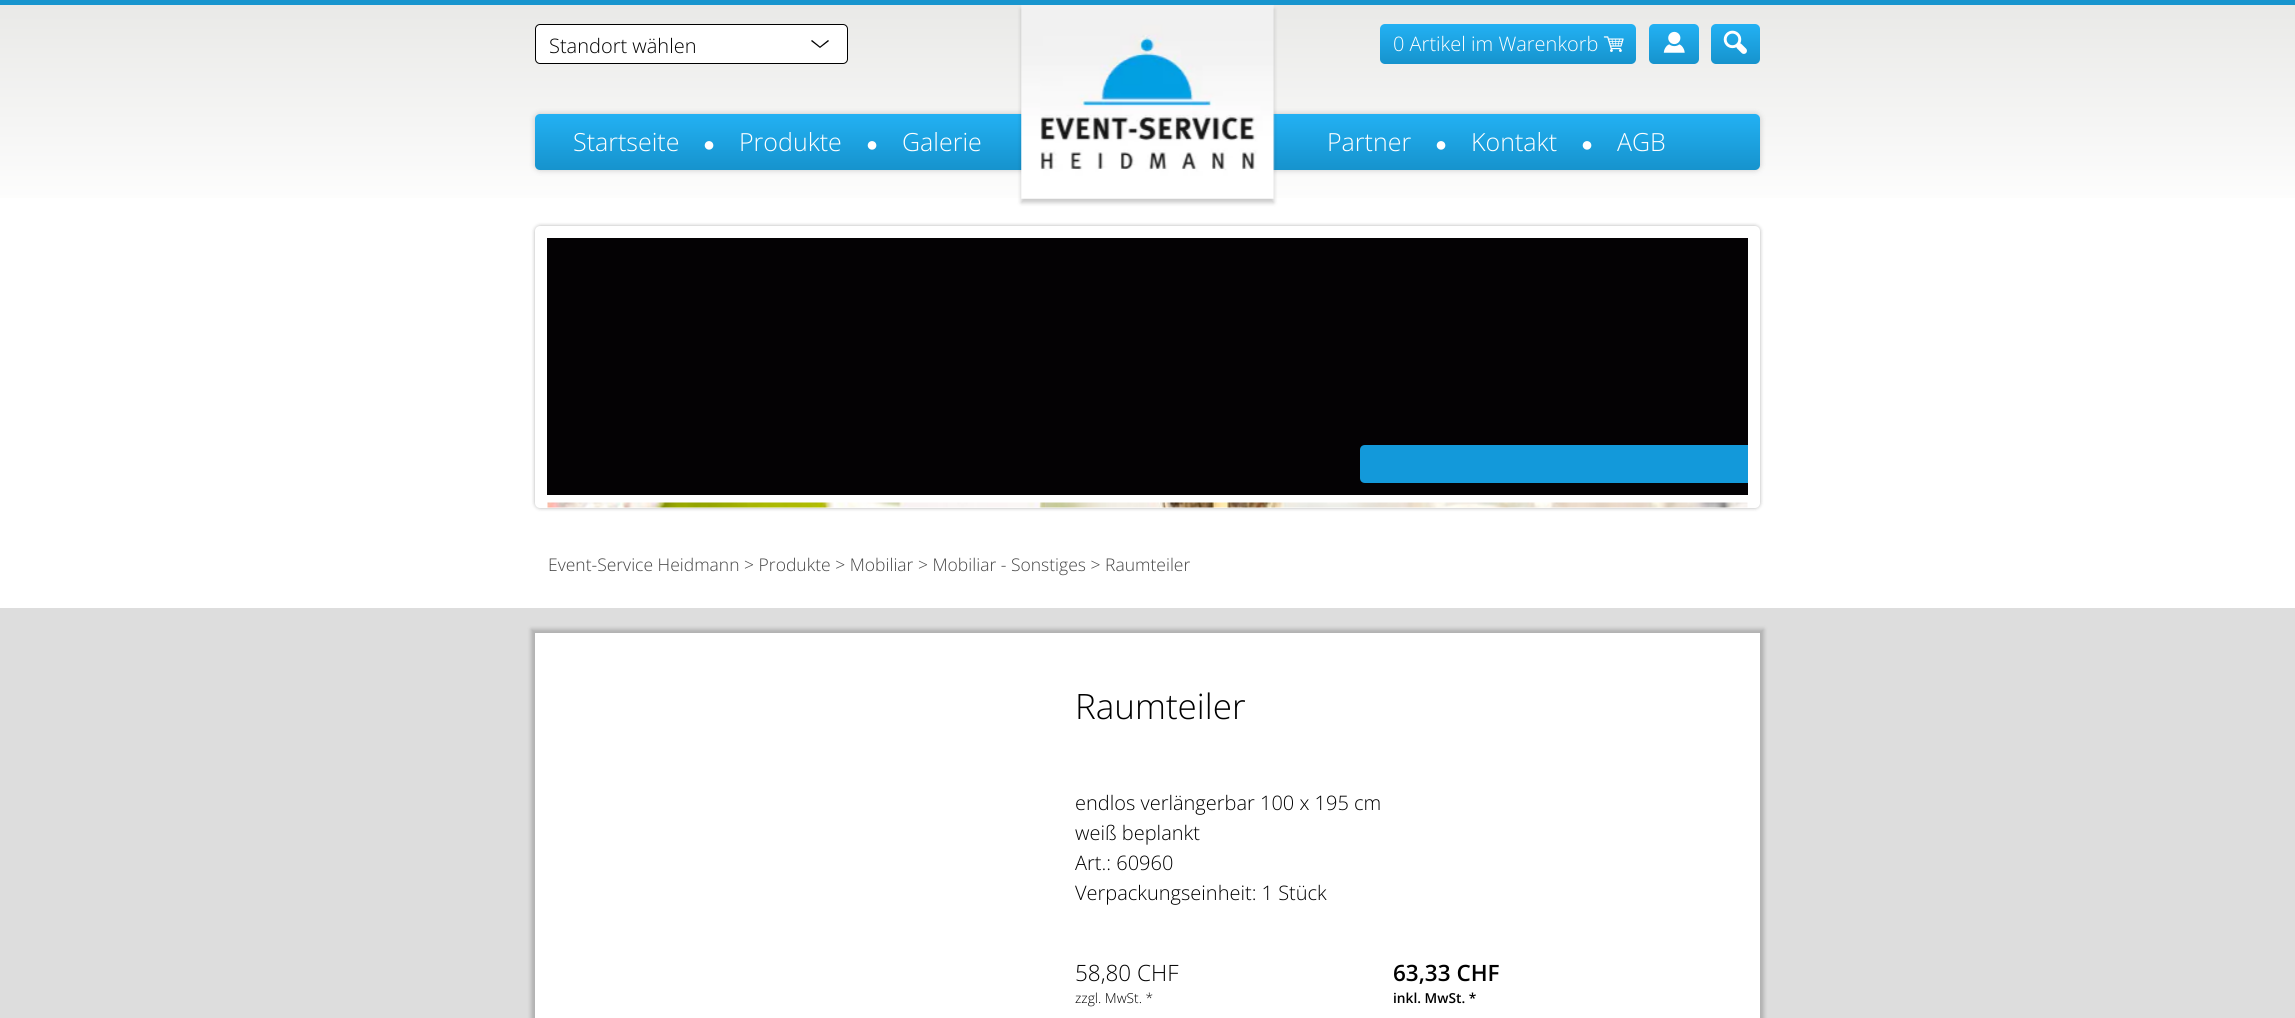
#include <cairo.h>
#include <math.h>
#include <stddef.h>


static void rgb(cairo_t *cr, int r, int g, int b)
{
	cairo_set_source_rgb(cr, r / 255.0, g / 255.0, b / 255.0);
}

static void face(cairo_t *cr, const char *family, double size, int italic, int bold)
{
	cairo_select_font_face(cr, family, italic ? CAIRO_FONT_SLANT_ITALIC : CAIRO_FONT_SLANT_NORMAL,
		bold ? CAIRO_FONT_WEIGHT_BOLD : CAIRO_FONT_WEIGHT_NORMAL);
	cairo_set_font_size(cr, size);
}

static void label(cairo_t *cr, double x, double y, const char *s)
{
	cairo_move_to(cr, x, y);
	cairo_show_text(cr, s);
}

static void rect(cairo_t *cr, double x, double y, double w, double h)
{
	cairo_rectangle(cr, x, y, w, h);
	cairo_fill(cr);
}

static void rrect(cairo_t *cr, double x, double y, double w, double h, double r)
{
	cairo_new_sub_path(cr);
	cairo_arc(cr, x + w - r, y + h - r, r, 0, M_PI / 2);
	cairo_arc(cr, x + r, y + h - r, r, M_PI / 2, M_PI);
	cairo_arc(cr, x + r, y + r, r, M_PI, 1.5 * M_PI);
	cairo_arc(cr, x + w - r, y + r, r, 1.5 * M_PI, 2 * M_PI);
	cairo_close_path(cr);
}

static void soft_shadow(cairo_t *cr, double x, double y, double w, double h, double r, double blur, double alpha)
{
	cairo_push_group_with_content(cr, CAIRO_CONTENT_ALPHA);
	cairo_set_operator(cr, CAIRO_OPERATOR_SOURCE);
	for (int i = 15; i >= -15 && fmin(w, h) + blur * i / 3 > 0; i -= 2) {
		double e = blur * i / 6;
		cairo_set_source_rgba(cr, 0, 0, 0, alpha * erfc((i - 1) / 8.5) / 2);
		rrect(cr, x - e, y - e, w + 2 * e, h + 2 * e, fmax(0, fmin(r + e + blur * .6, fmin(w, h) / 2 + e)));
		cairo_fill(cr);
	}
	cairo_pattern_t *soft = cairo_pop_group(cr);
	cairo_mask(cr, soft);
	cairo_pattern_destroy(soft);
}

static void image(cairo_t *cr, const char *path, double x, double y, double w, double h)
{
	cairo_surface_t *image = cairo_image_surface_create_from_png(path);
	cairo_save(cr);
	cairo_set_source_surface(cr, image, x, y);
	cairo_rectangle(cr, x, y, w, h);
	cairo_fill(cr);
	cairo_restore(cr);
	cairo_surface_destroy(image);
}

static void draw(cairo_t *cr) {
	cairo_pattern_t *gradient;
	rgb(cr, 255, 255, 255);
	cairo_paint(cr);
	gradient = cairo_pattern_create_linear(1148, 5, 1148, 220);
	cairo_pattern_add_color_stop_rgba(gradient, 0, 0.914, 0.914, 0.906, 1);
	cairo_pattern_add_color_stop_rgba(gradient, 1, 1, 1, 1, 1);
	cairo_set_source(cr, gradient);
	cairo_pattern_destroy(gradient);
	rect(cr, 0, 5, 2295, 193);
	rgb(cr, 24, 149, 206);
	rect(cr, 0, 0, 2295, 5);
	rgb(cr, 255, 255, 255);
	rrect(cr, 535.5, 24.5, 312, 39, 4.5);
	cairo_fill_preserve(cr);
	rgb(cr, 0, 0, 0);
	cairo_set_line_width(cr, 1);
	cairo_stroke(cr);
	face(cr, "Open Sans Light", 20, 0, 0);
	label(cr, 549, 53, "Standort wählen");
	cairo_new_path(cr);
	cairo_move_to(cr, 820, 48);
	cairo_line_to(cr, 811, 41);
	cairo_line_to(cr, 812, 40);
	cairo_line_to(cr, 820, 46.5);
	cairo_line_to(cr, 828, 40);
	cairo_line_to(cr, 829, 41);
	cairo_close_path(cr);
	cairo_fill(cr);
	rgb(cr, 0, 0, 0);
	soft_shadow(cr, 535, 114, 1225, 56, 5, 3, 0.2);
	gradient = cairo_pattern_create_linear(1148, 114, 1148, 170);
	cairo_pattern_add_color_stop_rgba(gradient, 0, 0.137, 0.694, 0.953, 1);
	cairo_pattern_add_color_stop_rgba(gradient, 1, 0.086, 0.576, 0.804, 1);
	cairo_set_source(cr, gradient);
	cairo_pattern_destroy(gradient);
	rrect(cr, 535, 114, 1225, 56, 5);
	cairo_fill(cr);
	rgb(cr, 0, 0, 0);
	soft_shadow(cr, 1021, 9, 253, 194, 0, 2, 0.2);
	image(cr, "image0.png", 1021, 5, 254, 194);
	gradient = cairo_pattern_create_linear(1508, 24, 1508, 64);
	cairo_pattern_add_color_stop_rgba(gradient, 0, 0.137, 0.694, 0.953, 1);
	cairo_pattern_add_color_stop_rgba(gradient, 1, 0.086, 0.576, 0.804, 1);
	cairo_set_source(cr, gradient);
	cairo_pattern_destroy(gradient);
	rrect(cr, 1380, 24, 256, 40, 5);
	cairo_fill(cr);
	rgb(cr, 255, 255, 255);
	label(cr, 1393, 51, "0 Artikel im Warenkorb");
	image(cr, "image1.png", 1603, 36, 21, 16);
	gradient = cairo_pattern_create_linear(1674, 24, 1674, 64);
	cairo_pattern_add_color_stop_rgba(gradient, 0, 0.137, 0.694, 0.953, 1);
	cairo_pattern_add_color_stop_rgba(gradient, 1, 0.086, 0.576, 0.804, 1);
	cairo_set_source(cr, gradient);
	cairo_pattern_destroy(gradient);
	rrect(cr, 1649, 24, 50, 40, 5);
	cairo_fill(cr);
	image(cr, "image2.png", 1663, 31, 22, 22);
	gradient = cairo_pattern_create_linear(1736, 24, 1736, 64);
	cairo_pattern_add_color_stop_rgba(gradient, 0, 0.137, 0.694, 0.953, 1);
	cairo_pattern_add_color_stop_rgba(gradient, 1, 0.086, 0.576, 0.804, 1);
	cairo_set_source(cr, gradient);
	cairo_pattern_destroy(gradient);
	rrect(cr, 1711, 24, 49, 40, 5);
	cairo_fill(cr);
	image(cr, "image3.png", 1723, 30, 24, 24);
	face(cr, "Open Sans Light", 25, 0, 0);
	rgb(cr, 255, 255, 255);
	label(cr, 573, 151, "Startseite");
	face(cr, "Liberation Sans", 20, 0, 0);
	label(cr, 703, 151, "●");
	face(cr, "Open Sans Light", 25, 0, 0);
	label(cr, 739, 151, "Produkte");
	face(cr, "Liberation Sans", 20, 0, 0);
	label(cr, 866, 151, "●");
	face(cr, "Open Sans Light", 25, 0, 0);
	label(cr, 902, 151, "Galerie");
	label(cr, 1327, 151, "Partner");
	face(cr, "Liberation Sans", 20, 0, 0);
	label(cr, 1435, 151, "●");
	face(cr, "Open Sans Light", 25, 0, 0);
	label(cr, 1471, 151, "Kontakt");
	face(cr, "Liberation Sans", 20, 0, 0);
	label(cr, 1581, 151, "●");
	face(cr, "Open Sans Light", 25, 0, 0);
	label(cr, 1617, 151, "AGB");
	rgb(cr, 0, 0, 0);
	soft_shadow(cr, 535, 226, 1225, 282, 5, 2, 0.3);
	rgb(cr, 255, 255, 255);
	rrect(cr, 535, 226, 1225, 282, 5);
	cairo_fill(cr);
	rgb(cr, 4, 2, 4);
	rect(cr, 547, 238, 1201, 257);
	image(cr, "image4.png", 547, 502, 1201, 6);
	rgb(cr, 19, 153, 218);
	cairo_new_path(cr);
	cairo_move_to(cr, 1365, 445);
	cairo_line_to(cr, 1748, 445);
	cairo_line_to(cr, 1748, 483);
	cairo_line_to(cr, 1365, 483);
	cairo_curve_to(cr, 1362, 483, 1360, 481, 1360, 478);
	cairo_line_to(cr, 1360, 450);
	cairo_curve_to(cr, 1360, 447, 1362, 445, 1365, 445);
	cairo_close_path(cr);
	cairo_fill(cr);
	face(cr, "Open Sans Light", 17.5, 0, 0);
	rgb(cr, 68, 68, 68);
	label(cr, 548, 571, "Event-Service Heidmann > Produkte > Mobiliar > Mobiliar - Sonstiges > Raumteiler");
	rgb(cr, 221, 221, 221);
	rect(cr, 0, 608, 2295, 410);
	rgb(cr, 0, 0, 0);
	soft_shadow(cr, 531, 629, 1233, 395, 0, 2, 0.2);
	rgb(cr, 255, 255, 255);
	rect(cr, 535, 633, 1225, 385);
	face(cr, "Open Sans Light", 35, 0, 0);
	rgb(cr, 0, 0, 0);
	label(cr, 1075, 719, "Raumteiler");
	face(cr, "Open Sans Light", 20, 0, 0);
	label(cr, 1075, 810, "endlos verlängerbar 100 x 195 cm");
	label(cr, 1075, 840, "weiß beplankt");
	label(cr, 1075, 870, "Art.: 60960");
	label(cr, 1075, 900, "Verpackungseinheit: 1 Stück");
	face(cr, "Open Sans Light", 22.5, 0, 0);
	label(cr, 1075, 981, "58,80 CHF");
	face(cr, "Open Sans Light", 13.75, 0, 0);
	label(cr, 1075, 1003, "zzgl. MwSt. *");
	face(cr, "Open Sans SemiBold", 22.5, 0, 0);
	label(cr, 1393, 981, "63,33 CHF");
	face(cr, "Open Sans SemiBold", 13.75, 0, 0);
	label(cr, 1393, 1003, "inkl. MwSt. *");
}

int main(void) {
	cairo_surface_t *surface = cairo_image_surface_create(CAIRO_FORMAT_RGB24, 2295, 1018);
	cairo_t *cr = cairo_create(surface);
	cairo_font_options_t *options = cairo_font_options_create();
	cairo_font_options_set_hint_metrics(options, CAIRO_HINT_METRICS_OFF);
	cairo_font_options_set_hint_style(options, CAIRO_HINT_STYLE_NONE);
	cairo_set_font_options(cr, options);
	cairo_set_miter_limit(cr, 4);
	draw(cr);
	cairo_surface_write_to_png(surface, "render.png");
	cairo_font_options_destroy(options);
	cairo_destroy(cr);
	cairo_surface_destroy(surface);
	return 0;
}
